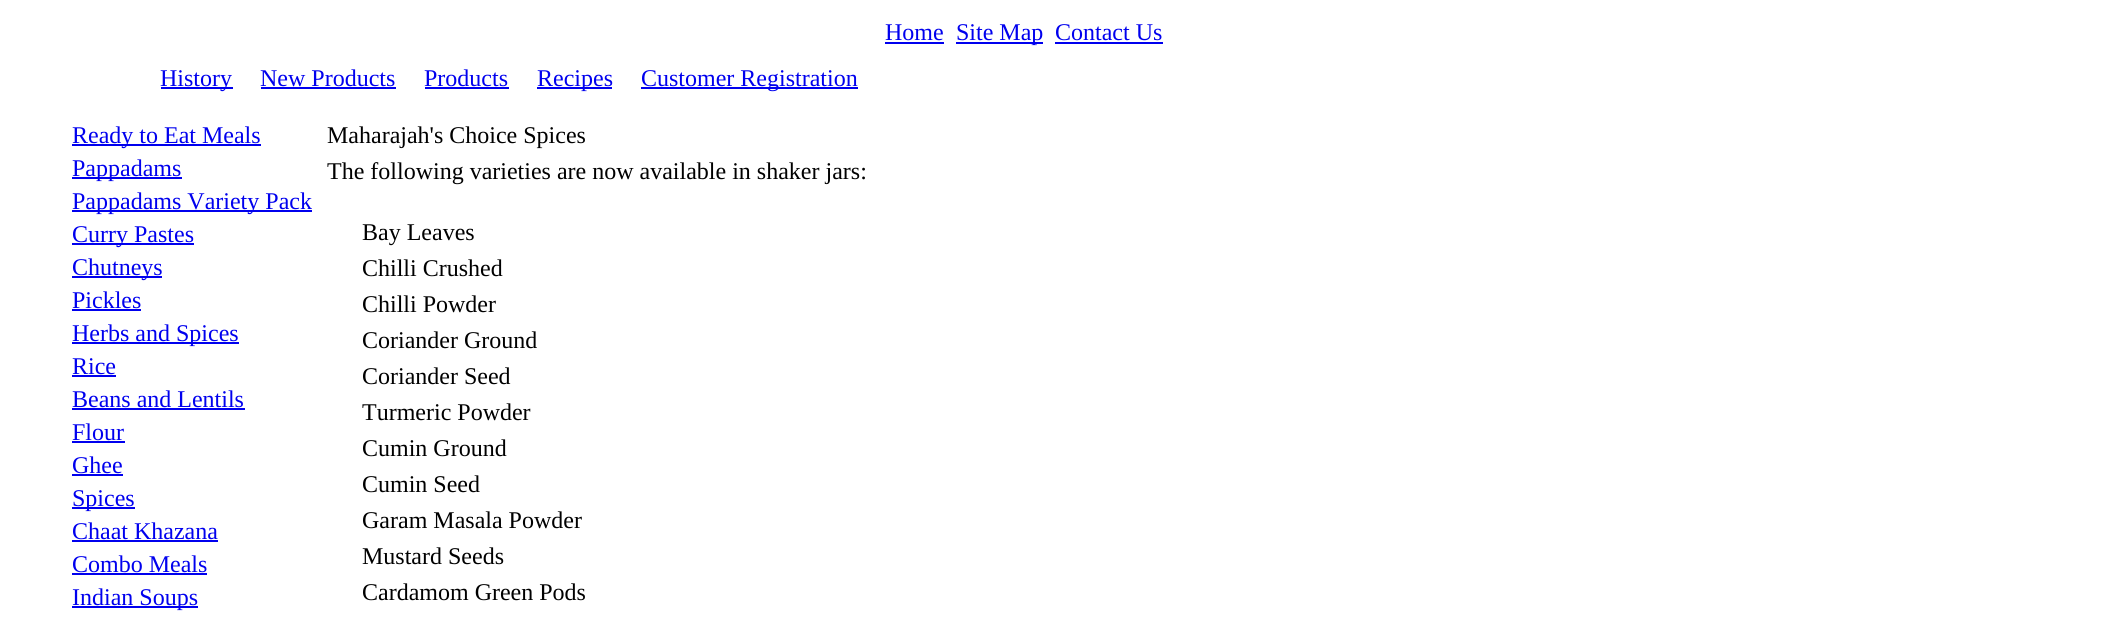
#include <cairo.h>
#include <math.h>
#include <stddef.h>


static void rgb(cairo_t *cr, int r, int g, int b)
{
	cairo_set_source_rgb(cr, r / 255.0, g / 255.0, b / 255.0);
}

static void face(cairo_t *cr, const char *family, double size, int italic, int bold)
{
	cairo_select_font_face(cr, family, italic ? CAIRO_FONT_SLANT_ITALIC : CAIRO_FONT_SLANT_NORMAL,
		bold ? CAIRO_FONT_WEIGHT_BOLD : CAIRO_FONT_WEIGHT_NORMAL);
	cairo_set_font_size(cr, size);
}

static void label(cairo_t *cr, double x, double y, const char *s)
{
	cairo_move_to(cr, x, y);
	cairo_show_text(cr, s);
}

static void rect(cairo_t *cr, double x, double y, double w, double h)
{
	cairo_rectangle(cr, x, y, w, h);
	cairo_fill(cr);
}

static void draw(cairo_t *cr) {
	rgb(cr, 255, 255, 255);
	cairo_paint(cr);
	face(cr, "Liberation Serif", 24, 0, 0);
	rgb(cr, 0, 0, 238);
	label(cr, 885, 40, "Home");
	rect(cr, 885, 42, 59, 2);
	rect(cr, 956, 42, 87, 2);
	label(cr, 956, 40, "Site Map");
	label(cr, 1055, 40, "Contact Us");
	rect(cr, 1055, 42, 108, 2);
	rect(cr, 161, 87, 72, 2);
	label(cr, 160, 86, "History");
	label(cr, 260, 86, "New Products");
	rect(cr, 261, 87, 135, 2);
	label(cr, 424, 86, "Products");
	rect(cr, 425, 87, 84, 2);
	rect(cr, 537, 87, 75, 2);
	label(cr, 537, 86, "Recipes");
	rect(cr, 641, 87, 217, 2);
	label(cr, 641, 86, "Customer Registration");
	rect(cr, 72, 144, 189, 2);
	label(cr, 72, 143, "Ready to Eat Meals");
	rect(cr, 72, 177, 110, 2);
	label(cr, 72, 176, "Pappadams");
	rect(cr, 72, 210, 240, 2);
	label(cr, 72, 209, "Pappadams Variety Pack");
	rect(cr, 72, 243, 122, 2);
	label(cr, 72, 242, "Curry Pastes");
	rect(cr, 72, 276, 90, 2);
	label(cr, 72, 275, "Chutneys");
	label(cr, 72, 308, "Pickles");
	rect(cr, 72, 309, 69, 2);
	rect(cr, 72, 342, 167, 2);
	label(cr, 72, 341, "Herbs and Spices");
	label(cr, 72, 374, "Rice");
	rect(cr, 72, 375, 44, 2);
	label(cr, 72, 407, "Beans and Lentils");
	rect(cr, 72, 408, 173, 2);
	label(cr, 72, 440, "Flour");
	rect(cr, 72, 441, 53, 2);
	label(cr, 72, 473, "Ghee");
	rect(cr, 72, 474, 51, 2);
	rect(cr, 72, 507, 63, 2);
	label(cr, 72, 506, "Spices");
	label(cr, 72, 539, "Chaat Khazana");
	rect(cr, 72, 540, 146, 2);
	label(cr, 72, 572, "Combo Meals");
	rect(cr, 72, 573, 135, 2);
	rect(cr, 72, 606, 126, 2);
	label(cr, 72, 605, "Indian Soups");
	rgb(cr, 0, 0, 0);
	label(cr, 327, 143, "Maharajah's Choice Spices");
	label(cr, 327, 179, "The following varieties are now available in shaker jars:");
	label(cr, 362, 240, "Bay Leaves");
	label(cr, 362, 276, "Chilli Crushed");
	label(cr, 362, 312, "Chilli Powder");
	label(cr, 362, 348, "Coriander Ground");
	label(cr, 362, 384, "Coriander Seed");
	label(cr, 362, 420, "Turmeric Powder");
	label(cr, 362, 456, "Cumin Ground");
	label(cr, 362, 492, "Cumin Seed");
	label(cr, 362, 528, "Garam Masala Powder");
	label(cr, 362, 564, "Mustard Seeds");
	label(cr, 362, 600, "Cardamom Green Pods");
}

int main(void) {
	cairo_surface_t *surface = cairo_image_surface_create(CAIRO_FORMAT_RGB24, 2102, 628);
	cairo_t *cr = cairo_create(surface);
	cairo_font_options_t *options = cairo_font_options_create();
	cairo_font_options_set_hint_metrics(options, CAIRO_HINT_METRICS_OFF);
	cairo_font_options_set_hint_style(options, CAIRO_HINT_STYLE_NONE);
	cairo_set_font_options(cr, options);
	cairo_set_miter_limit(cr, 4);
	draw(cr);
	cairo_surface_write_to_png(surface, "render.png");
	cairo_font_options_destroy(options);
	cairo_destroy(cr);
	cairo_surface_destroy(surface);
	return 0;
}
